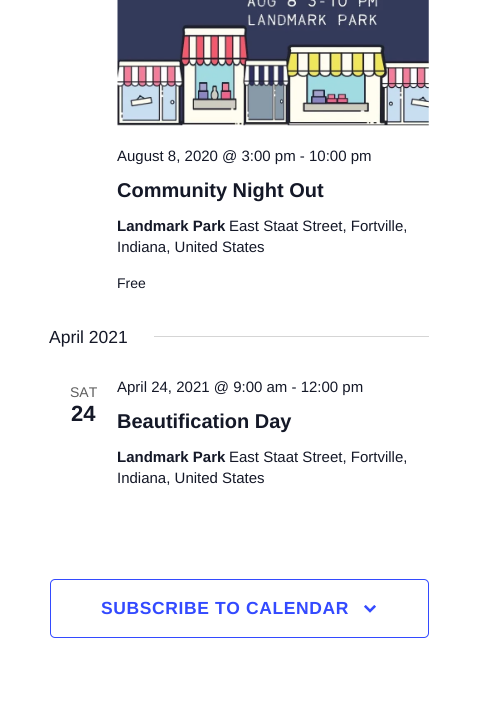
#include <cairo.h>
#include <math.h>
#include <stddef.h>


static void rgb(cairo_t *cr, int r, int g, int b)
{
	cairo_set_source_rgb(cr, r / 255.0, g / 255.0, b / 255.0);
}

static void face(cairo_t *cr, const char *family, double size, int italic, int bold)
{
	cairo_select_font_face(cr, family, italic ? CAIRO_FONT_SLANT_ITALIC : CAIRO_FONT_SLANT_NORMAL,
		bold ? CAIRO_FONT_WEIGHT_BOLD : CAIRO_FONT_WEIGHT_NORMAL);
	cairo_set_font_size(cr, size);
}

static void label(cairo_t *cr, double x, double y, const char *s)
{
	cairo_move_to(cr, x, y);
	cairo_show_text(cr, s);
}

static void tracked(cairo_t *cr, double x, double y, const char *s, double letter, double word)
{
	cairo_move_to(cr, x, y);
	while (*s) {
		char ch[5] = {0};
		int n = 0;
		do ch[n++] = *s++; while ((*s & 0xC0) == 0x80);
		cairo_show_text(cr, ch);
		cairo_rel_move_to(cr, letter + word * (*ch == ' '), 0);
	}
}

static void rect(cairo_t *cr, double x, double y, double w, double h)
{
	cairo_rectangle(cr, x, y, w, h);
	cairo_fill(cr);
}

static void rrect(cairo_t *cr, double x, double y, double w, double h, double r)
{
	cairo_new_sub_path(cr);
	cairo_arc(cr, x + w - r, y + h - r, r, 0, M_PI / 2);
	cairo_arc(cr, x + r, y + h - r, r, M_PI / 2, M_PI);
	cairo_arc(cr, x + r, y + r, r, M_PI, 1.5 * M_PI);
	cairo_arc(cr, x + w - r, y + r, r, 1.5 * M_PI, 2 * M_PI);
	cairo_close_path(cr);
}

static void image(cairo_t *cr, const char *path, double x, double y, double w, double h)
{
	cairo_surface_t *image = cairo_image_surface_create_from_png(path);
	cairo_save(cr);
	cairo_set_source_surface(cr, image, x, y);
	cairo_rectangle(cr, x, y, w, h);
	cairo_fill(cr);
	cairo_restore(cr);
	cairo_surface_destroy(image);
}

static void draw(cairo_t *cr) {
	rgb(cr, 255, 255, 255);
	cairo_paint(cr);
	image(cr, "image0.png", 117, 0, 312, 126);
	face(cr, "Liberation Sans", 15, 0, 0);
	rgb(cr, 20, 24, 39);
	label(cr, 117, 161, "August 8, 2020 @ 3:00 pm - 10:00 pm");
	face(cr, "Liberation Sans", 20, 0, 1);
	label(cr, 117, 197, "Community Night Out");
	face(cr, "Liberation Sans", 15, 0, 1);
	label(cr, 117, 231, "Landmark Park");
	face(cr, "Liberation Sans", 15, 0, 0);
	label(cr, 229, 231, "East Staat Street, Fortville,");
	label(cr, 117, 252, "Indiana, United States");
	face(cr, "Liberation Sans", 14, 0, 0);
	label(cr, 117, 288, "Free");
	face(cr, "Liberation Sans", 17.5, 0, 0);
	label(cr, 49, 343, "April 2021");
	rgb(cr, 213, 213, 213);
	rect(cr, 154, 336, 275, 1);
	face(cr, "Liberation Sans", 14, 0, 0);
	rgb(cr, 93, 93, 93);
	label(cr, 70, 397, "SAT");
	face(cr, "Liberation Sans", 22, 0, 1);
	rgb(cr, 20, 24, 39);
	label(cr, 71, 421, "24");
	face(cr, "Liberation Sans", 15, 0, 0);
	label(cr, 117, 392, "April 24, 2021 @ 9:00 am - 12:00 pm");
	face(cr, "Liberation Sans", 20, 0, 1);
	label(cr, 117, 428, "Beautification Day");
	face(cr, "Liberation Sans", 15, 0, 1);
	label(cr, 117, 462, "Landmark Park");
	face(cr, "Liberation Sans", 15, 0, 0);
	label(cr, 229, 462, "East Staat Street, Fortville,");
	label(cr, 117, 483, "Indiana, United States");
	rrect(cr, 50.5, 579.5, 378, 58, 4.5);
	rgb(cr, 51, 74, 255);
	cairo_set_line_width(cr, 1);
	cairo_stroke(cr);
	face(cr, "Liberation Sans", 17.5, 0, 1);
	tracked(cr, 101, 614, "SUBSCRIBE TO CALENDAR", 0.6, 0);
	image(cr, "image1.png", 364, 605, 12, 8);
}

int main(void) {
	cairo_surface_t *surface = cairo_image_surface_create(CAIRO_FORMAT_RGB24, 477, 723);
	cairo_t *cr = cairo_create(surface);
	cairo_font_options_t *options = cairo_font_options_create();
	cairo_font_options_set_hint_metrics(options, CAIRO_HINT_METRICS_OFF);
	cairo_font_options_set_hint_style(options, CAIRO_HINT_STYLE_NONE);
	cairo_set_font_options(cr, options);
	cairo_set_miter_limit(cr, 4);
	draw(cr);
	cairo_surface_write_to_png(surface, "render.png");
	cairo_font_options_destroy(options);
	cairo_destroy(cr);
	cairo_surface_destroy(surface);
	return 0;
}
